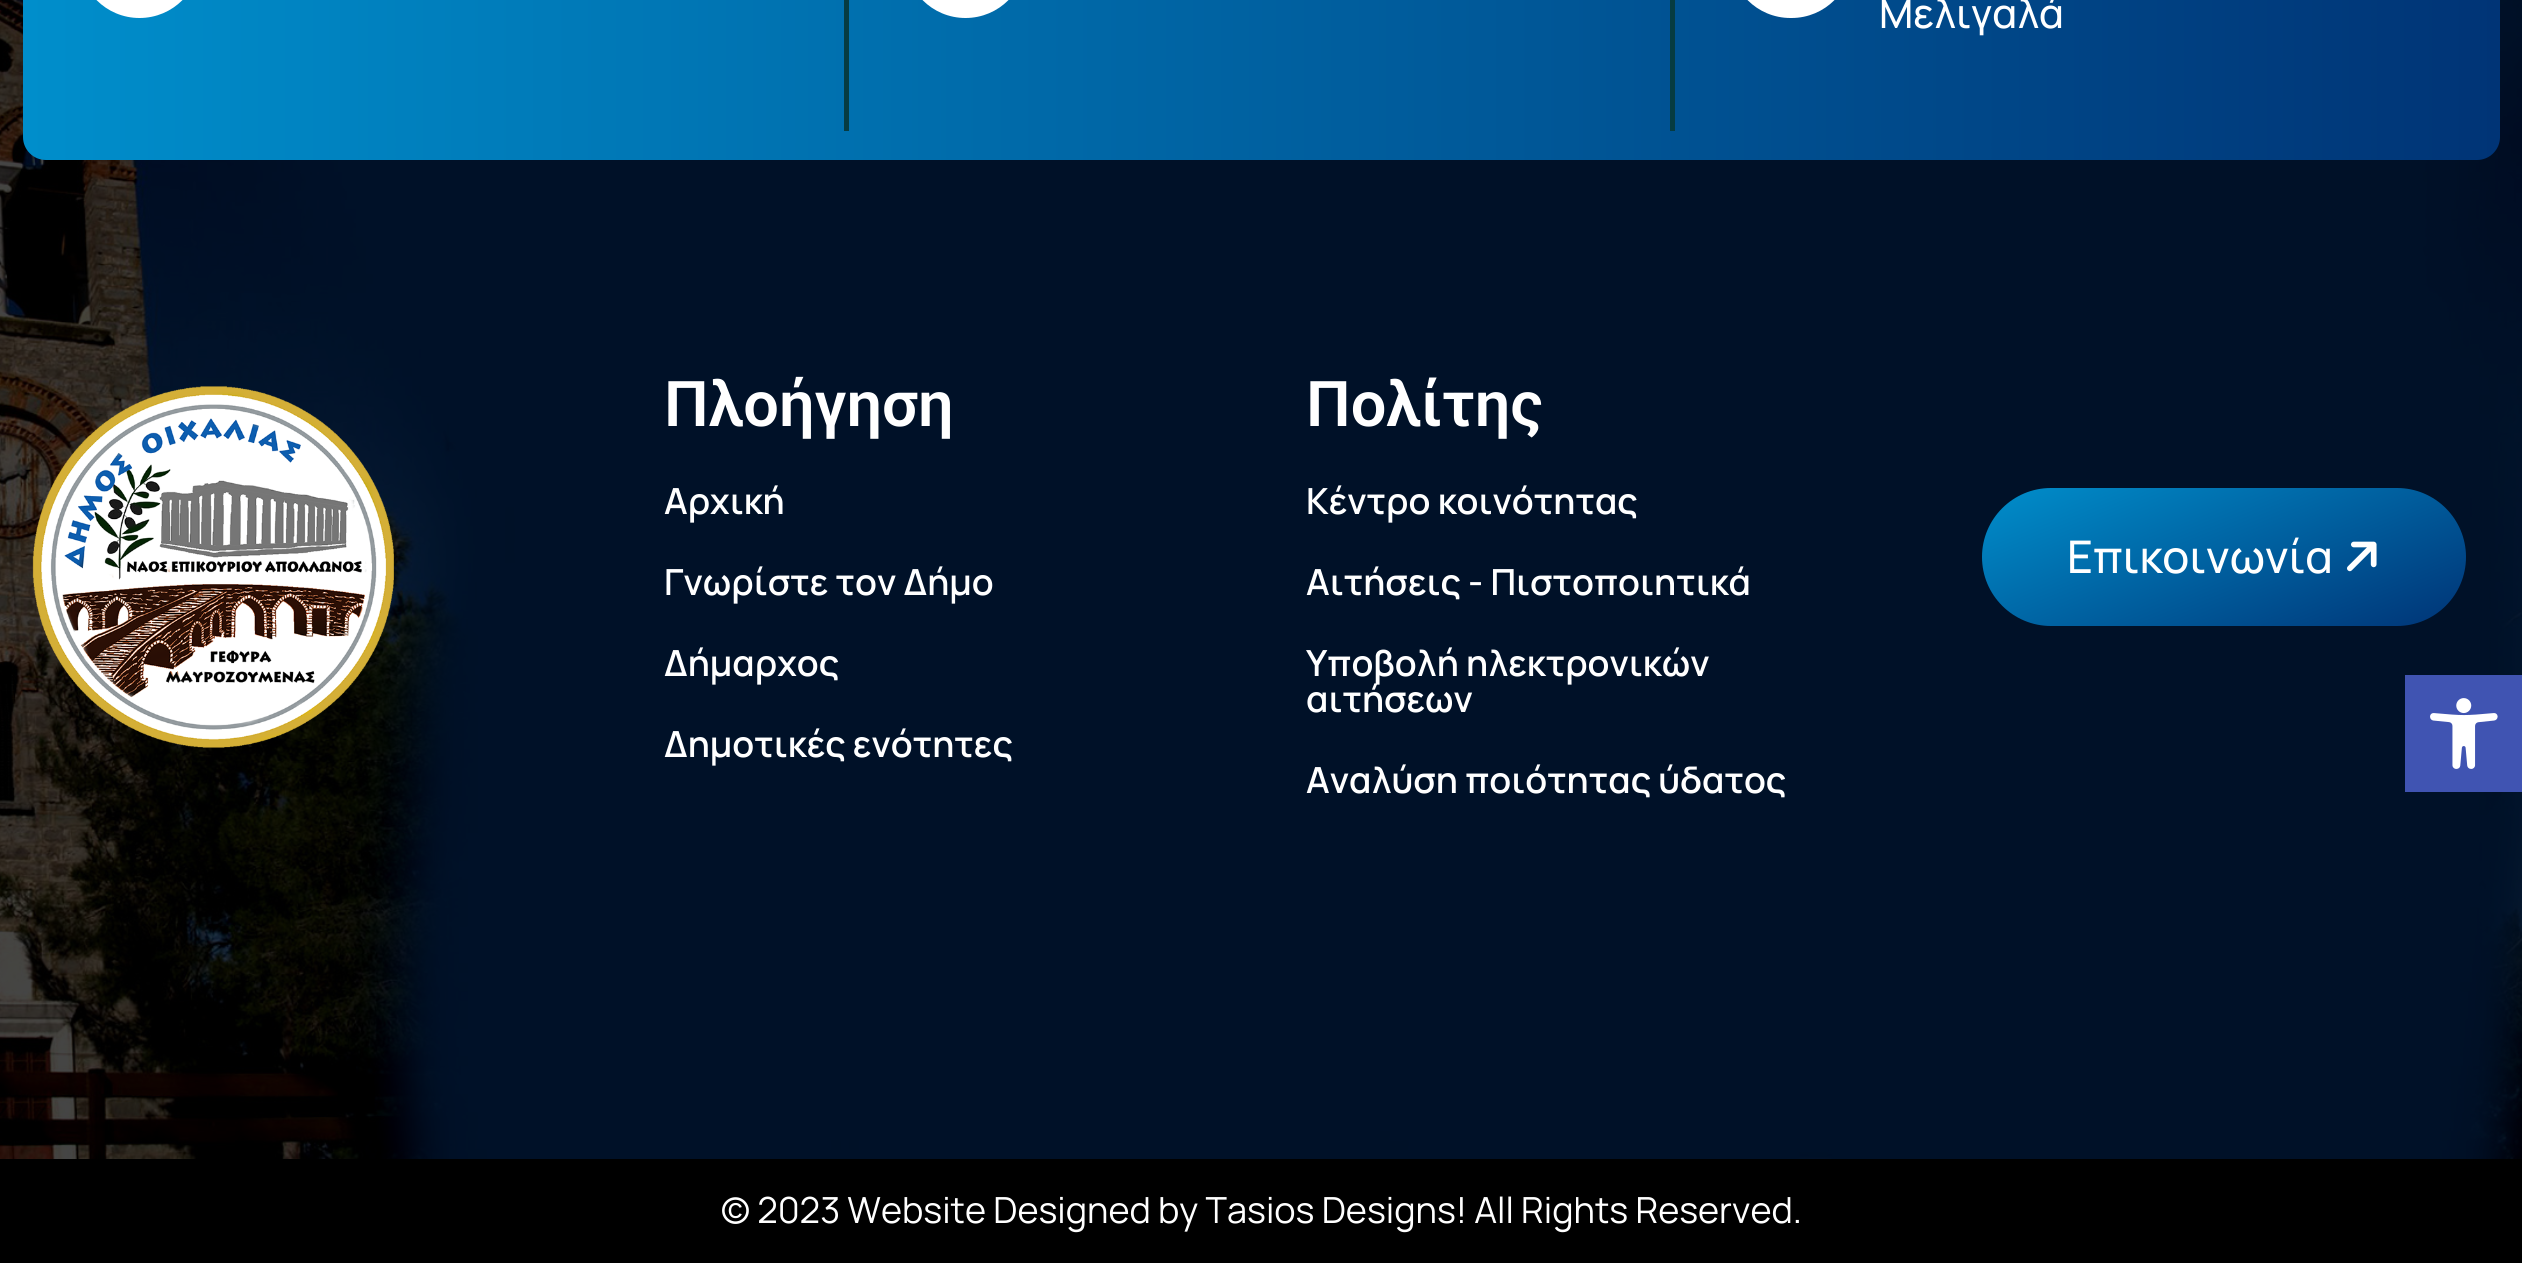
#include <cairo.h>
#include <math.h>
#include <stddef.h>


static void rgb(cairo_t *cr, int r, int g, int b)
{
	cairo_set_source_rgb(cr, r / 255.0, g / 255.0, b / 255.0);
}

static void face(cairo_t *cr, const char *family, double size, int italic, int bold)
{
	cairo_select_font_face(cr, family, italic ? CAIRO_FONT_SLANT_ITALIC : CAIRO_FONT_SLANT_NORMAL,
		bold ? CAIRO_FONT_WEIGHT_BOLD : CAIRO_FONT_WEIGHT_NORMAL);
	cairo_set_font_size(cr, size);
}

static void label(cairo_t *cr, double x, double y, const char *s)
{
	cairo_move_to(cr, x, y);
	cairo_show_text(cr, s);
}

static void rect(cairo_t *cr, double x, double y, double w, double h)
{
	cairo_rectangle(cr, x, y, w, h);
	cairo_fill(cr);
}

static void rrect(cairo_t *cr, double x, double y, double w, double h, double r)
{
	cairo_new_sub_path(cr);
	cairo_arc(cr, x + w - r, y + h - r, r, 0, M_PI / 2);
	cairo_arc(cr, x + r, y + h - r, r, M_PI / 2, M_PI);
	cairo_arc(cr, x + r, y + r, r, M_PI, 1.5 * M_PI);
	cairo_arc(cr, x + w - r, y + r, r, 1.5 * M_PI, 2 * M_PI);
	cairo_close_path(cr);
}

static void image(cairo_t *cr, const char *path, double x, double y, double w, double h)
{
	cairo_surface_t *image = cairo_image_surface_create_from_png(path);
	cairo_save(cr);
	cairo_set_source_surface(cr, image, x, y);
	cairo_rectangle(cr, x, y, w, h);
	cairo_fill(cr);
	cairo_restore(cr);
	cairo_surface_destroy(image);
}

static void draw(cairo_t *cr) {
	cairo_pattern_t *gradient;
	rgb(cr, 255, 255, 255);
	cairo_paint(cr);
	image(cr, "image0.png", 0, 0, 2522, 1159);
	gradient = cairo_pattern_create_linear(23, -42, 2500, -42);
	cairo_pattern_add_color_stop_rgba(gradient, 0, 0, 0.557, 0.796, 1);
	cairo_pattern_add_color_stop_rgba(gradient, 1, 0, 0.204, 0.463, 1);
	cairo_set_source(cr, gradient);
	cairo_pattern_destroy(gradient);
	rrect(cr, 23, -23, 2477, 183, 23);
	cairo_fill(cr);
	rgb(cr, 6, 60, 66);
	rect(cr, 844, 0, 5, 131);
	rgb(cr, 255, 255, 255);
	rrect(cr, 79, -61, 121, 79, 60.5);
	cairo_fill(cr);
	rgb(cr, 6, 60, 66);
	rect(cr, 1670, 0, 5, 131);
	rgb(cr, 255, 255, 255);
	rrect(cr, 905, -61, 121, 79, 60.5);
	cairo_fill(cr);
	rrect(cr, 1730, -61, 122, 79, 60.5);
	cairo_fill(cr);
	face(cr, "Manrope Medium", 40.5, 0, 0);
	label(cr, 1879, 28, "Μελιγαλά");
	image(cr, "image1.png", 32, 386, 362, 362);
	face(cr, "Roboto SemiBold", 63, 0, 0);
	label(cr, 664, 426, "Πλοήγηση");
	face(cr, "Manrope SemiBold", 36, 0, 0);
	label(cr, 664, 514, "Αρχική");
	label(cr, 664, 595, "Γνωρίστε τον Δήμο");
	label(cr, 664, 676, "Δήμαρχος");
	label(cr, 664, 757, "Δημοτικές ενότητες");
	face(cr, "Roboto SemiBold", 63, 0, 0);
	label(cr, 1306, 426, "Πολίτης");
	face(cr, "Manrope SemiBold", 36, 0, 0);
	label(cr, 1306, 514, "Κέντρο κοινότητας");
	label(cr, 1306, 595, "Αιτήσεις - Πιστοποιητικά");
	label(cr, 1306, 676, "Υποβολή ηλεκτρονικών");
	label(cr, 1306, 712, "αιτήσεων");
	label(cr, 1306, 793, "Αναλύση ποιότητας ύδατος");
	gradient = cairo_pattern_create_linear(2166, 414, 2282, 700);
	cairo_pattern_add_color_stop_rgba(gradient, 0, 0, 0.557, 0.796, 1);
	cairo_pattern_add_color_stop_rgba(gradient, 1, 0, 0.204, 0.463, 1);
	cairo_set_source(cr, gradient);
	cairo_pattern_destroy(gradient);
	rrect(cr, 1982, 488, 484, 138, 69);
	cairo_fill(cr);
	face(cr, "Manrope Medium", 45, 0, 0);
	rgb(cr, 255, 255, 255);
	label(cr, 2067, 573, "Επικοινωνία");
	image(cr, "image2.png", 2347, 541, 30, 31);
	rgb(cr, 0, 0, 0);
	rect(cr, 0, 1159, 2522, 104);
	face(cr, "Manrope ExtraLight", 36, 0, 0);
	rgb(cr, 255, 255, 255);
	label(cr, 721, 1223, "© 2023 Website Designed by Tasios Designs! All Rights Reserved.");
	rgb(cr, 64, 84, 178);
	rect(cr, 2405, 675, 117, 117);
	image(cr, "image3.png", 2430, 698, 68, 71);
}

int main(void) {
	cairo_surface_t *surface = cairo_image_surface_create(CAIRO_FORMAT_RGB24, 2522, 1263);
	cairo_t *cr = cairo_create(surface);
	cairo_font_options_t *options = cairo_font_options_create();
	cairo_font_options_set_hint_metrics(options, CAIRO_HINT_METRICS_OFF);
	cairo_font_options_set_hint_style(options, CAIRO_HINT_STYLE_NONE);
	cairo_set_font_options(cr, options);
	cairo_set_miter_limit(cr, 4);
	draw(cr);
	cairo_surface_write_to_png(surface, "render.png");
	cairo_font_options_destroy(options);
	cairo_destroy(cr);
	cairo_surface_destroy(surface);
	return 0;
}
